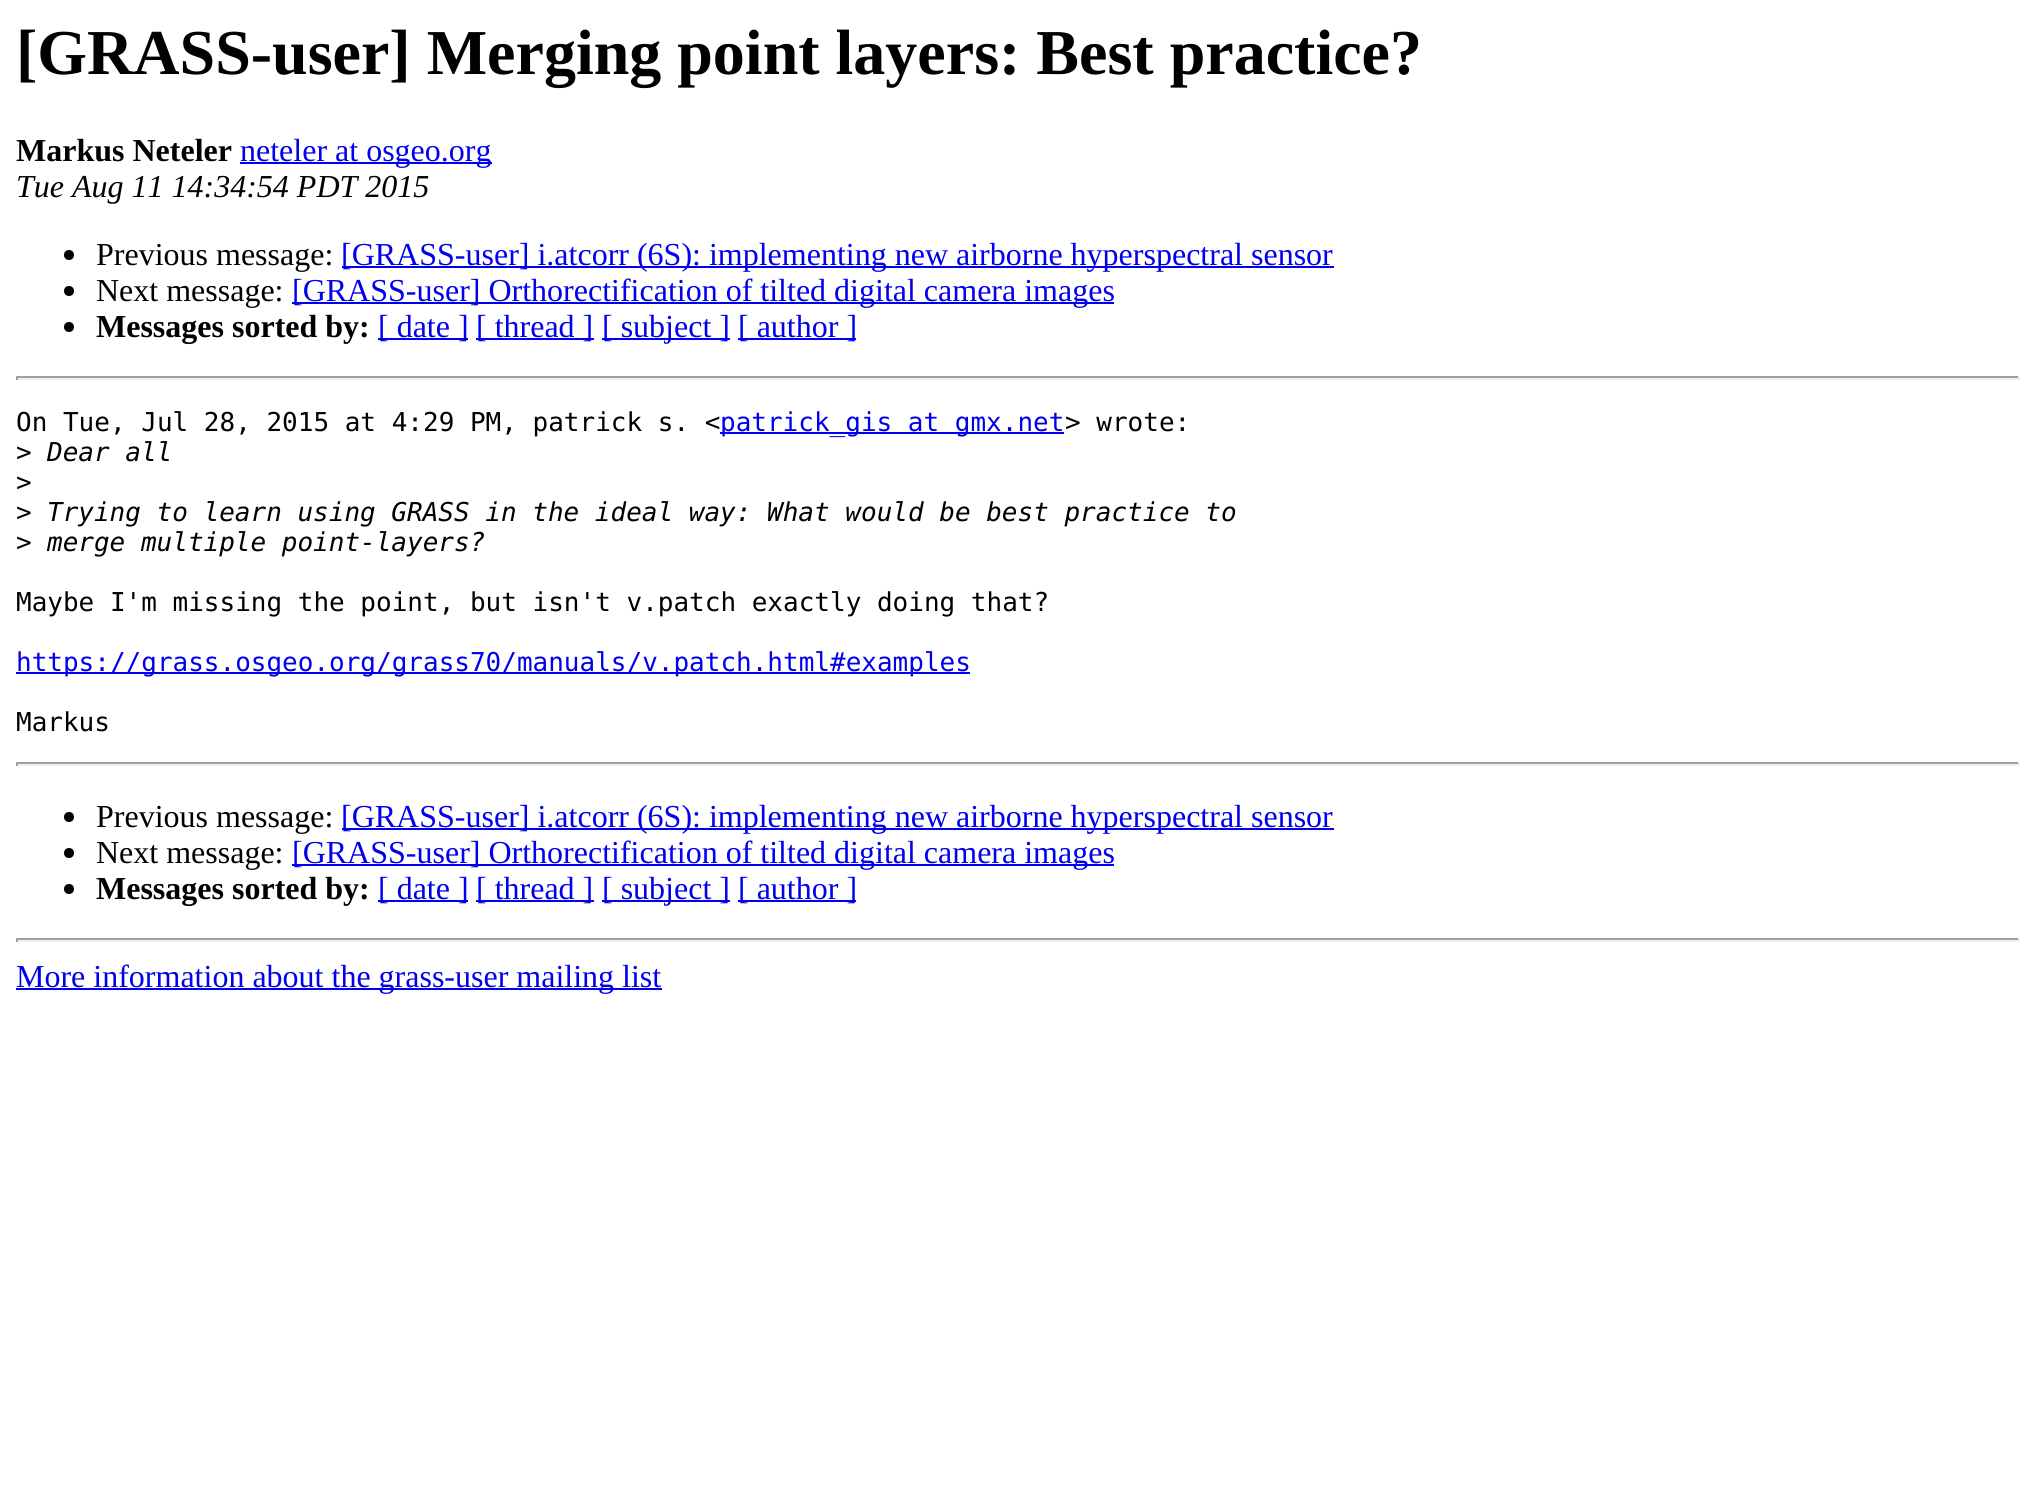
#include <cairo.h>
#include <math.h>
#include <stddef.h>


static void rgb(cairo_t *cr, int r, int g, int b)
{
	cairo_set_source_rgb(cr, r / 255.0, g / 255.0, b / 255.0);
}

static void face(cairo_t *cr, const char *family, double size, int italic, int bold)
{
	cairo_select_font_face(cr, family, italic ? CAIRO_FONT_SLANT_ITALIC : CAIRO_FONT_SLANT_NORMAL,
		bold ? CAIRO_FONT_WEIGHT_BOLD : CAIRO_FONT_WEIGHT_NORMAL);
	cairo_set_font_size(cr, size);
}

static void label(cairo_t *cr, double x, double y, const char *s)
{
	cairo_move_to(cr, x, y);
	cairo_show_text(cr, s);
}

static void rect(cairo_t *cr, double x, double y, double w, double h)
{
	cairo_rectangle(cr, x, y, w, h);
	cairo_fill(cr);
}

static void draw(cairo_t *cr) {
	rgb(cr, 255, 255, 255);
	cairo_paint(cr);
	face(cr, "Liberation Serif", 64, 0, 1);
	rgb(cr, 0, 0, 0);
	label(cr, 16, 74, "[GRASS-user] Merging point layers: Best practice?");
	face(cr, "Liberation Serif", 32, 0, 1);
	label(cr, 16, 161, "Markus Neteler");
	rgb(cr, 0, 0, 238);
	rect(cr, 240, 162, 252, 2);
	face(cr, "Liberation Serif", 32, 0, 0);
	label(cr, 240, 161, "neteler at osgeo.org");
	face(cr, "Liberation Serif", 32, 1, 0);
	rgb(cr, 0, 0, 0);
	label(cr, 16, 197, "Tue Aug 11 14:34:54 PDT 2015");
	cairo_new_path(cr);
	cairo_arc(cr, 69, 255, 5, 0, 2 * M_PI);
	cairo_fill(cr);
	face(cr, "Liberation Serif", 32, 0, 0);
	label(cr, 96, 265, "Previous message:");
	rgb(cr, 0, 0, 238);
	rect(cr, 342, 266, 992, 2);
	label(cr, 341, 265, "[GRASS-user] i.atcorr (6S): implementing new airborne hyperspectral sensor");
	rgb(cr, 0, 0, 0);
	cairo_new_path(cr);
	cairo_arc(cr, 69, 291, 5, 0, 2 * M_PI);
	cairo_fill(cr);
	label(cr, 96, 301, "Next message:");
	rgb(cr, 0, 0, 238);
	rect(cr, 292, 302, 822, 2);
	label(cr, 292, 301, "[GRASS-user] Orthorectification of tilted digital camera images");
	rgb(cr, 0, 0, 0);
	cairo_new_path(cr);
	cairo_arc(cr, 69, 327, 5, 0, 2 * M_PI);
	cairo_fill(cr);
	face(cr, "Liberation Serif", 32, 0, 1);
	label(cr, 96, 337, "Messages sorted by:");
	rgb(cr, 0, 0, 238);
	rect(cr, 378, 338, 90, 2);
	face(cr, "Liberation Serif", 32, 0, 0);
	label(cr, 378, 337, "[ date ]");
	rect(cr, 476, 338, 118, 2);
	label(cr, 476, 337, "[ thread ]");
	rect(cr, 602, 338, 128, 2);
	label(cr, 602, 337, "[ subject ]");
	rect(cr, 738, 338, 118, 2);
	label(cr, 738, 337, "[ author ]");
	rgb(cr, 159, 159, 159);
	rect(cr, 16, 376, 2004, 2);
	rgb(cr, 238, 238, 238);
	rect(cr, 2018, 376, 2, 4);
	rect(cr, 16, 378, 2004, 2);
	rgb(cr, 159, 159, 159);
	rect(cr, 16, 376, 2, 4);
	face(cr, "DejaVu Sans Mono", 26, 0, 0);
	rgb(cr, 0, 0, 0);
	label(cr, 16, 431, "On Tue, Jul 28, 2015 at 4:29 PM, patrick s. <");
	rgb(cr, 0, 0, 238);
	rect(cr, 720, 432, 344, 2);
	label(cr, 720, 431, "patrick_gis at gmx.net");
	rgb(cr, 0, 0, 0);
	label(cr, 1065, 431, "> wrote:");
	label(cr, 16, 461, ">");
	face(cr, "DejaVu Sans Mono", 26, 1, 0);
	label(cr, 47, 461, "Dear all");
	face(cr, "DejaVu Sans Mono", 26, 0, 0);
	label(cr, 16, 491, ">");
	label(cr, 16, 521, ">");
	face(cr, "DejaVu Sans Mono", 26, 1, 0);
	label(cr, 47, 521, "Trying to learn using GRASS in the ideal way: What would be best practice to");
	face(cr, "DejaVu Sans Mono", 26, 0, 0);
	label(cr, 16, 551, ">");
	face(cr, "DejaVu Sans Mono", 26, 1, 0);
	label(cr, 47, 551, "merge multiple point-layers?");
	face(cr, "DejaVu Sans Mono", 26, 0, 0);
	label(cr, 16, 611, "Maybe I'm missing the point, but isn't v.patch exactly doing that?");
	rgb(cr, 0, 0, 238);
	rect(cr, 16, 672, 954, 2);
	label(cr, 16, 671, "https://grass.osgeo.org/grass70/manuals/v.patch.html#examples");
	rgb(cr, 0, 0, 0);
	label(cr, 16, 731, "Markus");
	rgb(cr, 159, 159, 159);
	rect(cr, 16, 762, 2004, 2);
	rgb(cr, 238, 238, 238);
	rect(cr, 2018, 762, 2, 4);
	rect(cr, 16, 764, 2004, 2);
	rgb(cr, 159, 159, 159);
	rect(cr, 16, 762, 2, 4);
	rgb(cr, 0, 0, 0);
	cairo_new_path(cr);
	cairo_arc(cr, 69, 817, 5, 0, 2 * M_PI);
	cairo_fill(cr);
	face(cr, "Liberation Serif", 32, 0, 0);
	label(cr, 96, 827, "Previous message:");
	rgb(cr, 0, 0, 238);
	rect(cr, 342, 828, 992, 2);
	label(cr, 341, 827, "[GRASS-user] i.atcorr (6S): implementing new airborne hyperspectral sensor");
	rgb(cr, 0, 0, 0);
	cairo_new_path(cr);
	cairo_arc(cr, 69, 853, 5, 0, 2 * M_PI);
	cairo_fill(cr);
	label(cr, 96, 863, "Next message:");
	rgb(cr, 0, 0, 238);
	rect(cr, 292, 864, 822, 2);
	label(cr, 292, 863, "[GRASS-user] Orthorectification of tilted digital camera images");
	rgb(cr, 0, 0, 0);
	cairo_new_path(cr);
	cairo_arc(cr, 69, 889, 5, 0, 2 * M_PI);
	cairo_fill(cr);
	face(cr, "Liberation Serif", 32, 0, 1);
	label(cr, 96, 899, "Messages sorted by:");
	rgb(cr, 0, 0, 238);
	rect(cr, 378, 900, 90, 2);
	face(cr, "Liberation Serif", 32, 0, 0);
	label(cr, 378, 899, "[ date ]");
	rect(cr, 476, 900, 118, 2);
	label(cr, 476, 899, "[ thread ]");
	rect(cr, 602, 900, 128, 2);
	label(cr, 602, 899, "[ subject ]");
	rect(cr, 738, 900, 118, 2);
	label(cr, 738, 899, "[ author ]");
	rgb(cr, 159, 159, 159);
	rect(cr, 16, 938, 2004, 2);
	rgb(cr, 238, 238, 238);
	rect(cr, 2018, 938, 2, 4);
	rect(cr, 16, 940, 2004, 2);
	rgb(cr, 159, 159, 159);
	rect(cr, 16, 938, 2, 4);
	rgb(cr, 0, 0, 238);
	rect(cr, 16, 988, 646, 2);
	label(cr, 16, 987, "More information about the grass-user mailing list");
}

int main(void) {
	cairo_surface_t *surface = cairo_image_surface_create(CAIRO_FORMAT_RGB24, 2035, 1485);
	cairo_t *cr = cairo_create(surface);
	cairo_font_options_t *options = cairo_font_options_create();
	cairo_font_options_set_hint_metrics(options, CAIRO_HINT_METRICS_OFF);
	cairo_font_options_set_hint_style(options, CAIRO_HINT_STYLE_NONE);
	cairo_set_font_options(cr, options);
	cairo_set_miter_limit(cr, 4);
	draw(cr);
	cairo_surface_write_to_png(surface, "render.png");
	cairo_font_options_destroy(options);
	cairo_destroy(cr);
	cairo_surface_destroy(surface);
	return 0;
}
